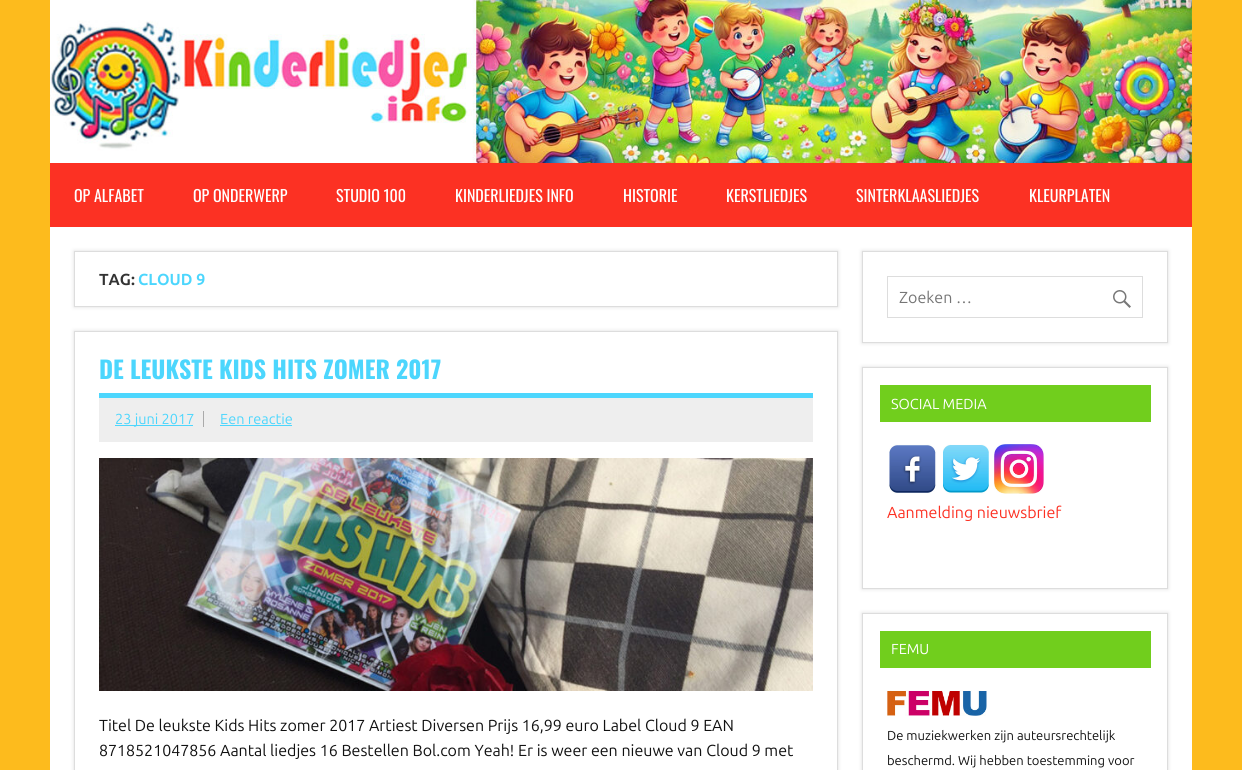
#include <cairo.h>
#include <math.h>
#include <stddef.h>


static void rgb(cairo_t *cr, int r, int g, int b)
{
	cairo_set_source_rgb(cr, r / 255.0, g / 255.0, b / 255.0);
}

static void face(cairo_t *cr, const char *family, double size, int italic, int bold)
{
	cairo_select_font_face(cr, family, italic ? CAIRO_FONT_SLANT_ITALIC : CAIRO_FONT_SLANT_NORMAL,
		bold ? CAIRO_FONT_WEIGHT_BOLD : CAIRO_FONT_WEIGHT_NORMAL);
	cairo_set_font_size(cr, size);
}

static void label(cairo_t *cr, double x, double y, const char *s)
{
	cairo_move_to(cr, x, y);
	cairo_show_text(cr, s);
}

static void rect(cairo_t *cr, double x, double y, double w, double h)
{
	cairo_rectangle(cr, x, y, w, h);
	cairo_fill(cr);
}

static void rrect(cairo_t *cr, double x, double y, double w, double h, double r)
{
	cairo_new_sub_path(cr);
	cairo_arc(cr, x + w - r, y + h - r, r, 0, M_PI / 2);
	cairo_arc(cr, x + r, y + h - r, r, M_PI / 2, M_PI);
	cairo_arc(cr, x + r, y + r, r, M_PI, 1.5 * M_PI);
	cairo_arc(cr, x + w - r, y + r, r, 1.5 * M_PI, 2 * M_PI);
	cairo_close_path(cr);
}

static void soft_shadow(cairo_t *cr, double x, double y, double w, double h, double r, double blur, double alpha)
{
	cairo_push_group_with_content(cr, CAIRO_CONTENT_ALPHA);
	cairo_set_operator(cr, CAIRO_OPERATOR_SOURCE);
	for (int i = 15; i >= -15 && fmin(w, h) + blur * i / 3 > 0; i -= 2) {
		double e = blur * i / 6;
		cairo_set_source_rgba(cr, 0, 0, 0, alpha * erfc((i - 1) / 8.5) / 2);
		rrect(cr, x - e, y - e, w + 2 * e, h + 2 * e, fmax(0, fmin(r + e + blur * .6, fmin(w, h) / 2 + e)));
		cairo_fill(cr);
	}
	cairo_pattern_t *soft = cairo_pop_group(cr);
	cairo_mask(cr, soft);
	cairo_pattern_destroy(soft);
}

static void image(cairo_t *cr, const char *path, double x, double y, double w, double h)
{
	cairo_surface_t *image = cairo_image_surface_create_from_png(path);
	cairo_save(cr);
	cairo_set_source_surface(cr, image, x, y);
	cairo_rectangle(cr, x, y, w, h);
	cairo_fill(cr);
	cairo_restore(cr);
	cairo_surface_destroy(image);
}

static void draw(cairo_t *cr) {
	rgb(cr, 253, 187, 29);
	cairo_paint(cr);
	rgb(cr, 255, 255, 255);
	rect(cr, 50, 227, 1142, 543);
	image(cr, "image0.png", 50, 0, 1142, 163);
	rgb(cr, 252, 49, 35);
	rect(cr, 50, 163, 1142, 64);
	face(cr, "Oswald", 16, 0, 0);
	rgb(cr, 255, 255, 255);
	label(cr, 74, 202, "OP ALFABET");
	label(cr, 193, 202, "OP ONDERWERP");
	label(cr, 336, 202, "STUDIO 100");
	label(cr, 455, 202, "KINDERLIEDJES INFO");
	label(cr, 623, 202, "HISTORIE");
	label(cr, 726, 202, "KERSTLIEDJES");
	label(cr, 856, 202, "SINTERKLAASLIEDJES");
	label(cr, 1029, 202, "KLEURPLATEN");
	cairo_save(cr);
	cairo_set_fill_rule(cr, CAIRO_FILL_RULE_EVEN_ODD);
	cairo_new_path(cr);
	cairo_move_to(cr, 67, 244);
	cairo_line_to(cr, 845, 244);
	cairo_line_to(cr, 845, 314);
	cairo_line_to(cr, 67, 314);
	cairo_close_path(cr);
	cairo_move_to(cr, 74, 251);
	cairo_line_to(cr, 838, 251);
	cairo_line_to(cr, 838, 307);
	cairo_line_to(cr, 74, 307);
	cairo_close_path(cr);
	cairo_clip(cr);
	rgb(cr, 221, 221, 221);
	soft_shadow(cr, 74, 251, 764, 56, 0, 2, 1);
	cairo_restore(cr);
	cairo_rectangle(cr, 74.5, 251.5, 763, 55);
	rgb(cr, 221, 221, 221);
	cairo_set_line_width(cr, 1);
	cairo_stroke(cr);
	face(cr, "Ubuntu", 16, 0, 1);
	rgb(cr, 51, 51, 51);
	label(cr, 99, 285, "TAG:");
	rgb(cr, 76, 214, 253);
	label(cr, 138, 285, "CLOUD 9");
	cairo_save(cr);
	cairo_set_fill_rule(cr, CAIRO_FILL_RULE_EVEN_ODD);
	cairo_new_path(cr);
	cairo_move_to(cr, 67, 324);
	cairo_line_to(cr, 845, 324);
	cairo_line_to(cr, 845, 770);
	cairo_line_to(cr, 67, 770);
	cairo_close_path(cr);
	cairo_move_to(cr, 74, 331);
	cairo_line_to(cr, 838, 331);
	cairo_line_to(cr, 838, 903);
	cairo_line_to(cr, 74, 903);
	cairo_close_path(cr);
	cairo_clip(cr);
	rgb(cr, 221, 221, 221);
	soft_shadow(cr, 74, 331, 764, 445, 0, 2, 1);
	cairo_restore(cr);
	cairo_rectangle(cr, 74.5, 331.5, 763, 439);
	rgb(cr, 221, 221, 221);
	cairo_stroke(cr);
	rgb(cr, 76, 214, 253);
	rect(cr, 99, 393, 714, 5);
	face(cr, "Oswald", 24, 0, 1);
	label(cr, 99, 379, "DE LEUKSTE KIDS HITS ZOMER 2017");
	rgb(cr, 238, 238, 238);
	rect(cr, 99, 398, 714, 44);
	rgb(cr, 76, 214, 253);
	rect(cr, 115, 425, 78, 1);
	face(cr, "Ubuntu", 14.5, 0, 0);
	label(cr, 115, 424, "23 juni 2017");
	rgb(cr, 170, 170, 170);
	rect(cr, 203, 411, 1, 16);
	rgb(cr, 76, 214, 253);
	label(cr, 220, 424, "Een reactie");
	rect(cr, 220, 425, 72, 1);
	image(cr, "image1.png", 99, 458, 714, 233);
	face(cr, "Ubuntu", 16, 0, 0);
	rgb(cr, 17, 17, 17);
	label(cr, 99, 731, "Titel De leukste Kids Hits zomer 2017 Artiest Diversen Prijs 16,99 euro Label Cloud 9 EAN");
	label(cr, 99, 756, "8718521047856 Aantal liedjes 16 Bestellen Bol.com Yeah! Er is weer een nieuwe van Cloud 9 met");
	cairo_save(cr);
	cairo_set_fill_rule(cr, CAIRO_FILL_RULE_EVEN_ODD);
	cairo_new_path(cr);
	cairo_move_to(cr, 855, 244);
	cairo_line_to(cr, 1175, 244);
	cairo_line_to(cr, 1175, 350);
	cairo_line_to(cr, 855, 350);
	cairo_close_path(cr);
	cairo_move_to(cr, 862, 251);
	cairo_line_to(cr, 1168, 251);
	cairo_line_to(cr, 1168, 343);
	cairo_line_to(cr, 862, 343);
	cairo_close_path(cr);
	cairo_clip(cr);
	rgb(cr, 221, 221, 221);
	soft_shadow(cr, 862, 251, 306, 92, 0, 2, 1);
	cairo_restore(cr);
	cairo_rectangle(cr, 862.5, 251.5, 305, 91);
	rgb(cr, 221, 221, 221);
	cairo_stroke(cr);
	cairo_rectangle(cr, 887.5, 276.5, 255, 41);
	cairo_stroke(cr);
	rgb(cr, 117, 117, 117);
	label(cr, 899, 303, "Zoeken …");
	image(cr, "image2.png", 1113, 290, 18, 18);
	cairo_save(cr);
	cairo_set_fill_rule(cr, CAIRO_FILL_RULE_EVEN_ODD);
	cairo_new_path(cr);
	cairo_move_to(cr, 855, 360);
	cairo_line_to(cr, 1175, 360);
	cairo_line_to(cr, 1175, 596);
	cairo_line_to(cr, 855, 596);
	cairo_close_path(cr);
	cairo_move_to(cr, 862, 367);
	cairo_line_to(cr, 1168, 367);
	cairo_line_to(cr, 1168, 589);
	cairo_line_to(cr, 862, 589);
	cairo_close_path(cr);
	cairo_clip(cr);
	rgb(cr, 221, 221, 221);
	soft_shadow(cr, 862, 367, 306, 222, 0, 2, 1);
	cairo_restore(cr);
	cairo_rectangle(cr, 862.5, 367.5, 305, 221);
	rgb(cr, 221, 221, 221);
	cairo_stroke(cr);
	rgb(cr, 113, 206, 29);
	rect(cr, 880, 385, 271, 37);
	face(cr, "Ubuntu", 14.5, 0, 0);
	rgb(cr, 255, 255, 255);
	label(cr, 891, 409, "SOCIAL MEDIA");
	image(cr, "image3.png", 889, 444, 48, 50);
	image(cr, "image4.png", 943, 444, 46, 50);
	image(cr, "image5.png", 994, 444, 50, 50);
	face(cr, "Ubuntu", 16, 0, 0);
	rgb(cr, 252, 49, 35);
	label(cr, 887, 518, "Aanmelding nieuwsbrief");
	cairo_save(cr);
	cairo_set_fill_rule(cr, CAIRO_FILL_RULE_EVEN_ODD);
	cairo_new_path(cr);
	cairo_move_to(cr, 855, 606);
	cairo_line_to(cr, 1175, 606);
	cairo_line_to(cr, 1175, 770);
	cairo_line_to(cr, 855, 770);
	cairo_close_path(cr);
	cairo_move_to(cr, 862, 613);
	cairo_line_to(cr, 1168, 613);
	cairo_line_to(cr, 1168, 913);
	cairo_line_to(cr, 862, 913);
	cairo_close_path(cr);
	cairo_clip(cr);
	rgb(cr, 221, 221, 221);
	soft_shadow(cr, 862, 613, 306, 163, 0, 2, 1);
	cairo_restore(cr);
	cairo_rectangle(cr, 862.5, 613.5, 305, 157);
	rgb(cr, 221, 221, 221);
	cairo_stroke(cr);
	rgb(cr, 113, 206, 29);
	rect(cr, 880, 631, 271, 37);
	face(cr, "Ubuntu", 14.5, 0, 0);
	rgb(cr, 255, 255, 255);
	label(cr, 891, 654, "FEMU");
	image(cr, "image6.png", 887, 690, 100, 26);
	face(cr, "Ubuntu", 13, 0, 0);
	rgb(cr, 17, 17, 17);
	label(cr, 887, 740, "De muziekwerken zijn auteursrechtelijk");
	label(cr, 887, 765, "beschermd. Wij hebben toestemming voor");
}

int main(void) {
	cairo_surface_t *surface = cairo_image_surface_create(CAIRO_FORMAT_RGB24, 1242, 770);
	cairo_t *cr = cairo_create(surface);
	cairo_font_options_t *options = cairo_font_options_create();
	cairo_font_options_set_hint_metrics(options, CAIRO_HINT_METRICS_OFF);
	cairo_font_options_set_hint_style(options, CAIRO_HINT_STYLE_NONE);
	cairo_set_font_options(cr, options);
	cairo_set_miter_limit(cr, 4);
	draw(cr);
	cairo_surface_write_to_png(surface, "render.png");
	cairo_font_options_destroy(options);
	cairo_destroy(cr);
	cairo_surface_destroy(surface);
	return 0;
}
